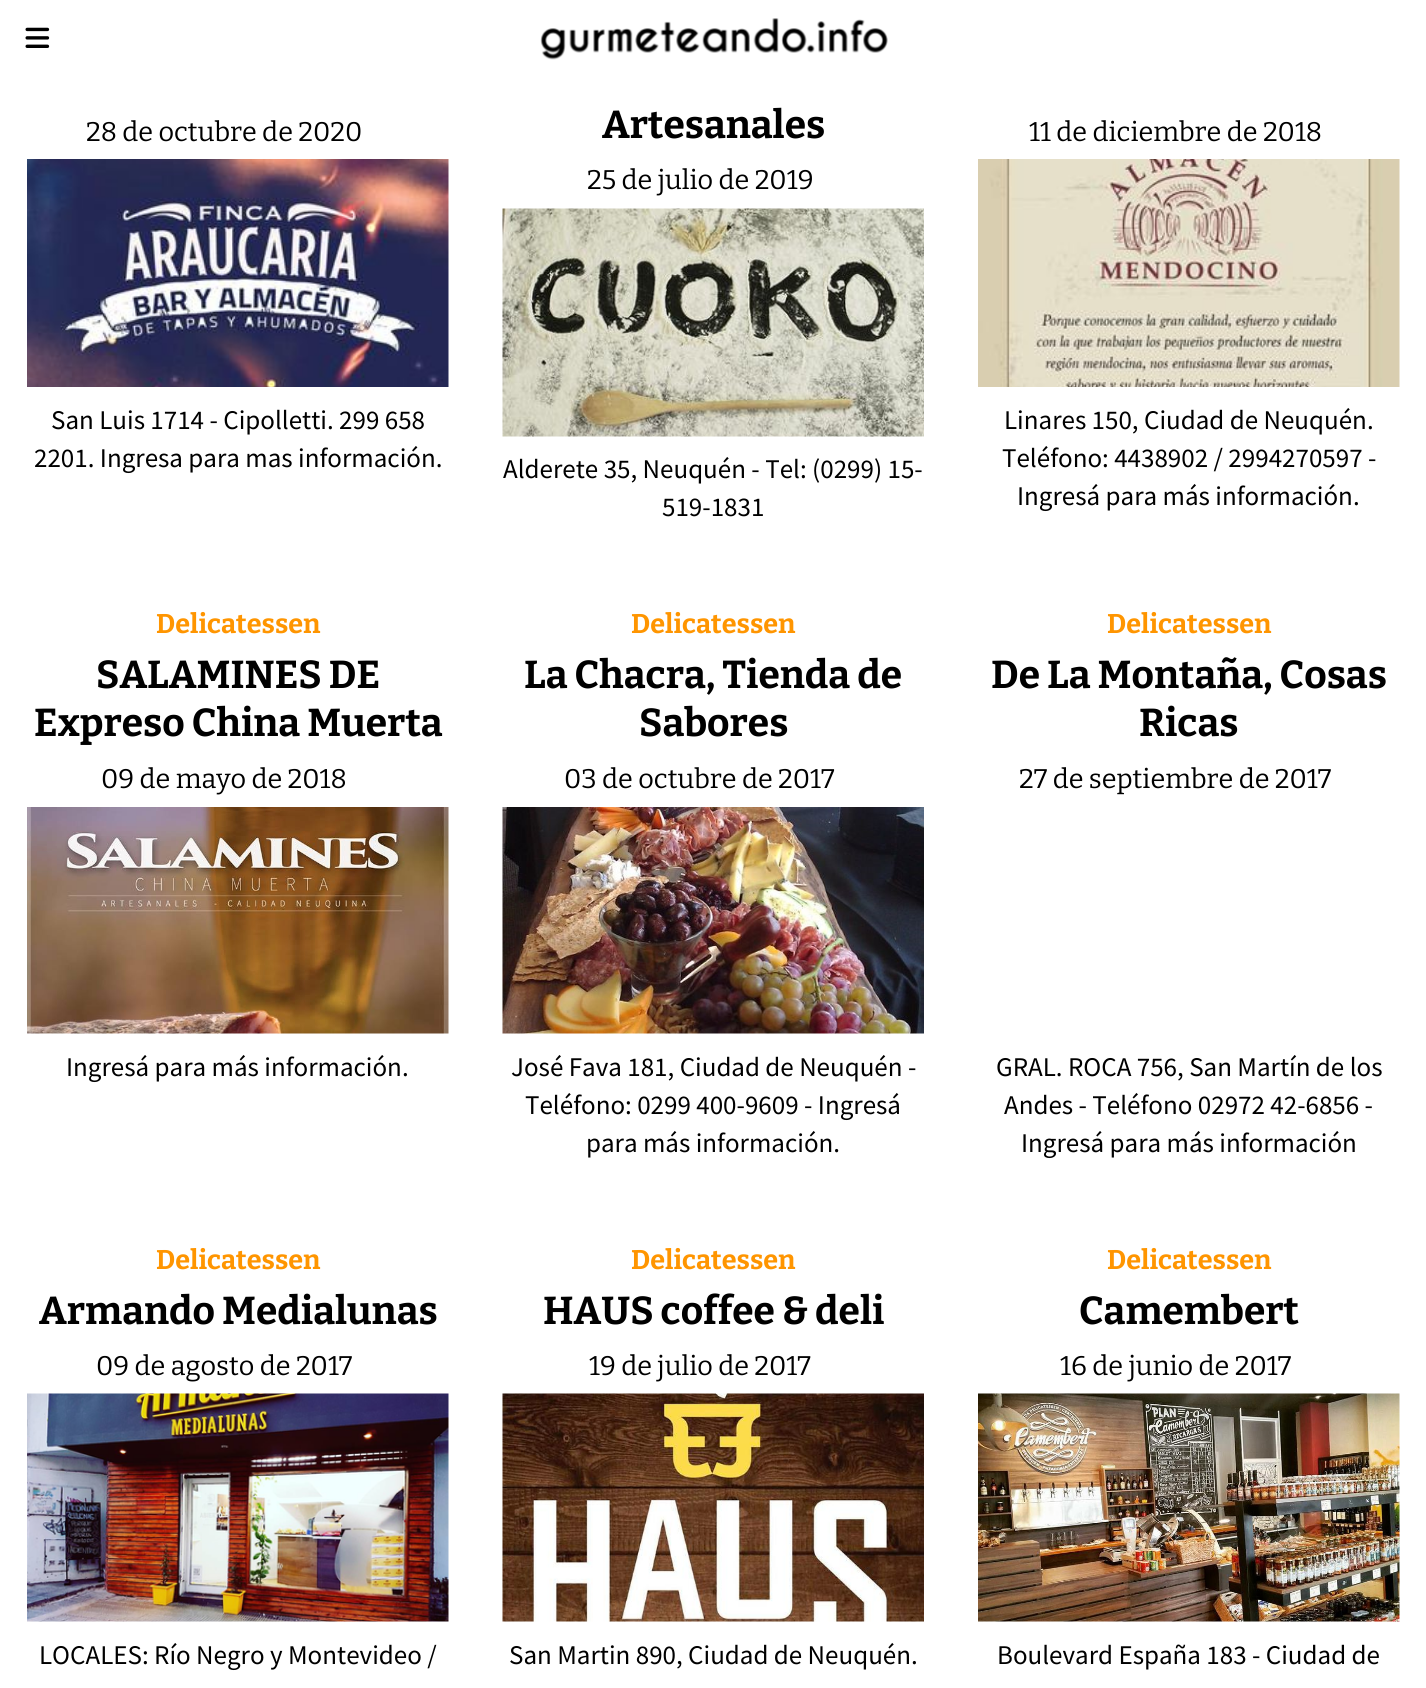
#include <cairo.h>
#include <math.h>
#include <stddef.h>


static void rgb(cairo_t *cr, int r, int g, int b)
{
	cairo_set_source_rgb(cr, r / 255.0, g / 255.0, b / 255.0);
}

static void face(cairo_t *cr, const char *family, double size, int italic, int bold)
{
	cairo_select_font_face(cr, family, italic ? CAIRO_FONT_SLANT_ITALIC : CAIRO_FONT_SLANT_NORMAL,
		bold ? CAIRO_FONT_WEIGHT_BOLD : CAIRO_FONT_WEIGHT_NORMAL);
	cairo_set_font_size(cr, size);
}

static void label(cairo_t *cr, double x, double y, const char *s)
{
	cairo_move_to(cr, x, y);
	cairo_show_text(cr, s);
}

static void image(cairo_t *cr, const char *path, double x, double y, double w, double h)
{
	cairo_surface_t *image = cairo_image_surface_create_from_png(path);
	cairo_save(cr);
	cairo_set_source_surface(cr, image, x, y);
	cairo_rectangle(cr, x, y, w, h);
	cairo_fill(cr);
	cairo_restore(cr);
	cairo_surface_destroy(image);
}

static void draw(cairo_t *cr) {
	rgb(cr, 255, 255, 255);
	cairo_paint(cr);
	image(cr, "image0.png", 25, 27, 25, 21);
	image(cr, "image1.png", 540, 18, 348, 42);
	face(cr, "Bitter", 27, 0, 0);
	rgb(cr, 0, 0, 0);
	label(cr, 86, 141, "28 de octubre de 2020");
	image(cr, "image2.png", 27, 159, 422, 228);
	face(cr, "Source Sans Pro", 27, 0, 0);
	label(cr, 51, 429, "San Luis 1714 - Cipolletti. 299 658");
	label(cr, 34, 467, "2201. Ingresa para mas información.");
	face(cr, "Bitter", 38.9, 0, 1);
	label(cr, 602, 138, "Artesanales");
	face(cr, "Bitter", 27, 0, 0);
	label(cr, 587, 189, "25 de julio de 2019");
	image(cr, "image3.png", 502, 208, 422, 229);
	face(cr, "Source Sans Pro", 27, 0, 0);
	label(cr, 503, 478, "Alderete 35, Neuquén - Tel: (0299) 15-");
	label(cr, 662, 516, "519-1831");
	face(cr, "Bitter", 27, 0, 0);
	label(cr, 1029, 141, "11 de diciembre de 2018");
	image(cr, "image4.png", 978, 159, 422, 228);
	face(cr, "Source Sans Pro", 27, 0, 0);
	label(cr, 1004, 429, "Linares 150, Ciudad de Neuquén.");
	label(cr, 1002, 467, "Teléfono: 4438902 / 2994270597 -");
	label(cr, 1017, 505, "Ingresá para más información.");
	face(cr, "Bitter", 27, 0, 1);
	rgb(cr, 255, 149, 0);
	label(cr, 156, 633, "Delicatessen");
	face(cr, "Bitter", 38.9, 0, 1);
	rgb(cr, 0, 0, 0);
	label(cr, 96, 688, "SALAMINES DE");
	label(cr, 34, 736, "Expreso China Muerta");
	face(cr, "Bitter", 27, 0, 0);
	label(cr, 101, 788, "09 de mayo de 2018");
	image(cr, "image5.png", 27, 807, 422, 227);
	face(cr, "Source Sans Pro", 27, 0, 0);
	label(cr, 66, 1076, "Ingresá para más información.");
	face(cr, "Bitter", 27, 0, 1);
	rgb(cr, 255, 149, 0);
	label(cr, 631, 633, "Delicatessen");
	face(cr, "Bitter", 38.9, 0, 1);
	rgb(cr, 0, 0, 0);
	label(cr, 524, 688, "La Chacra, Tienda de");
	label(cr, 639, 736, "Sabores");
	face(cr, "Bitter", 27, 0, 0);
	label(cr, 564, 788, "03 de octubre de 2017");
	image(cr, "image6.png", 502, 807, 422, 227);
	face(cr, "Source Sans Pro", 27, 0, 0);
	label(cr, 511, 1076, "José Fava 181, Ciudad de Neuquén -");
	label(cr, 525, 1114, "Teléfono: 0299 400-9609 - Ingresá");
	label(cr, 586, 1152, "para más información.");
	face(cr, "Bitter", 27, 0, 1);
	rgb(cr, 255, 149, 0);
	label(cr, 1107, 633, "Delicatessen");
	face(cr, "Bitter", 38.9, 0, 1);
	rgb(cr, 0, 0, 0);
	label(cr, 991, 688, "De La Montaña, Cosas");
	label(cr, 1139, 736, "Ricas");
	face(cr, "Bitter", 27, 0, 0);
	label(cr, 1019, 788, "27 de septiembre de 2017");
	face(cr, "Source Sans Pro", 27, 0, 0);
	label(cr, 996, 1076, "GRAL. ROCA 756, San Martín de los");
	label(cr, 1004, 1114, "Andes - Teléfono 02972 42-6856 -");
	label(cr, 1021, 1152, "Ingresá para más información");
	face(cr, "Bitter", 27, 0, 1);
	rgb(cr, 255, 149, 0);
	label(cr, 156, 1269, "Delicatessen");
	face(cr, "Bitter", 38.9, 0, 1);
	rgb(cr, 0, 0, 0);
	label(cr, 39, 1324, "Armando Medialunas");
	face(cr, "Bitter", 27, 0, 0);
	label(cr, 96, 1375, "09 de agosto de 2017");
	image(cr, "image7.png", 27, 1393, 422, 229);
	face(cr, "Source Sans Pro", 27, 0, 0);
	label(cr, 39, 1664, "LOCALES: Río Negro y Montevideo /");
	face(cr, "Bitter", 27, 0, 1);
	rgb(cr, 255, 149, 0);
	label(cr, 631, 1269, "Delicatessen");
	face(cr, "Bitter", 38.9, 0, 1);
	rgb(cr, 0, 0, 0);
	label(cr, 543, 1324, "HAUS coffee & deli");
	face(cr, "Bitter", 27, 0, 0);
	label(cr, 589, 1375, "19 de julio de 2017");
	image(cr, "image8.png", 502, 1393, 422, 229);
	face(cr, "Source Sans Pro", 27, 0, 0);
	label(cr, 509, 1664, "San Martin 890, Ciudad de Neuquén.");
	face(cr, "Bitter", 27, 0, 1);
	rgb(cr, 255, 149, 0);
	label(cr, 1107, 1269, "Delicatessen");
	face(cr, "Bitter", 38.9, 0, 1);
	rgb(cr, 0, 0, 0);
	label(cr, 1079, 1324, "Camembert");
	face(cr, "Bitter", 27, 0, 0);
	label(cr, 1060, 1375, "16 de junio de 2017");
	image(cr, "image9.png", 978, 1393, 422, 229);
	face(cr, "Source Sans Pro", 27, 0, 0);
	label(cr, 997, 1664, "Boulevard España 183 - Ciudad de");
}

int main(void) {
	cairo_surface_t *surface = cairo_image_surface_create(CAIRO_FORMAT_RGB24, 1426, 1688);
	cairo_t *cr = cairo_create(surface);
	cairo_font_options_t *options = cairo_font_options_create();
	cairo_font_options_set_hint_metrics(options, CAIRO_HINT_METRICS_OFF);
	cairo_font_options_set_hint_style(options, CAIRO_HINT_STYLE_NONE);
	cairo_set_font_options(cr, options);
	cairo_set_miter_limit(cr, 4);
	draw(cr);
	cairo_surface_write_to_png(surface, "render.png");
	cairo_font_options_destroy(options);
	cairo_destroy(cr);
	cairo_surface_destroy(surface);
	return 0;
}
